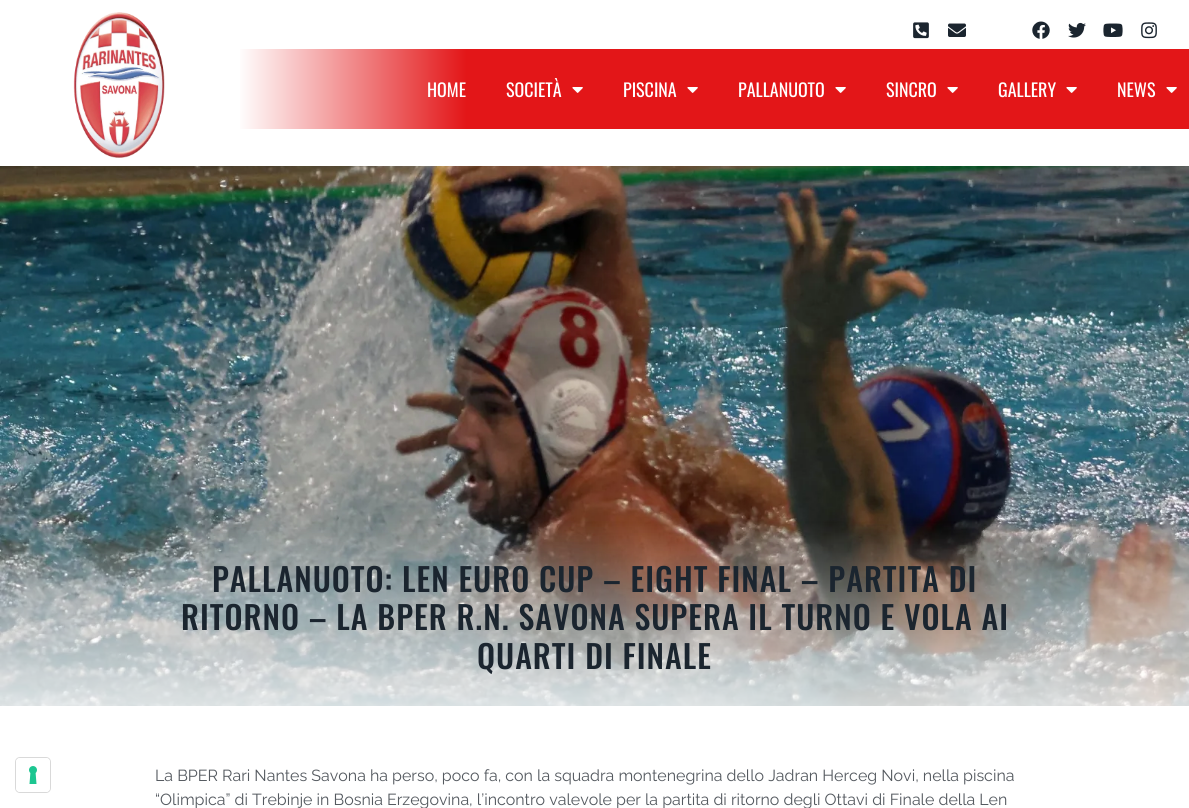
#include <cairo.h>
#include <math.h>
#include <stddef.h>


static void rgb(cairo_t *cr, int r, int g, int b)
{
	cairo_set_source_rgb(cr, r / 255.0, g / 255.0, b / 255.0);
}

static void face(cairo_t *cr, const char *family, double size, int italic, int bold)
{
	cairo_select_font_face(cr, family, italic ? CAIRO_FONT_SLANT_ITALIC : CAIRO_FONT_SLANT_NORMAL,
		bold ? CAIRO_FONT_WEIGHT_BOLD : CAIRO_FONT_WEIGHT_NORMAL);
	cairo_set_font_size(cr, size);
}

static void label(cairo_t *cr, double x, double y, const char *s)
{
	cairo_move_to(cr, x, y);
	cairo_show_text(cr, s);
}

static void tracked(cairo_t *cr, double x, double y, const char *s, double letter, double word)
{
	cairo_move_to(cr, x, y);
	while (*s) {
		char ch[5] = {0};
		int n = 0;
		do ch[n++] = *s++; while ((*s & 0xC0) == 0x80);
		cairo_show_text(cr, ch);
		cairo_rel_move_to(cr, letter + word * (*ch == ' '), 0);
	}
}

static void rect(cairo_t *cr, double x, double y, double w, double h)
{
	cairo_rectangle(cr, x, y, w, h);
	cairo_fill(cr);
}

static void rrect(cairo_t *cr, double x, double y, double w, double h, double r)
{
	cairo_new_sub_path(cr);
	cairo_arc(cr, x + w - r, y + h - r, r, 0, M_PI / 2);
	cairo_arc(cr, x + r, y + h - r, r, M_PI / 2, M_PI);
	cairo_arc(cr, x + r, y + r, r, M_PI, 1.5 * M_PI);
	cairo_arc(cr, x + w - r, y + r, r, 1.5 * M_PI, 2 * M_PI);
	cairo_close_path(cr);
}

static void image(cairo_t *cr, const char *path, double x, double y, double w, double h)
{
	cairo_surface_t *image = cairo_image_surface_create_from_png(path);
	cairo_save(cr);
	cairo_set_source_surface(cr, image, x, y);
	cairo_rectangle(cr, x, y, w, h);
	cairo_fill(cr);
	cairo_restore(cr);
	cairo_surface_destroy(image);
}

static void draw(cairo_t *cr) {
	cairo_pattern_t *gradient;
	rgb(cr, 255, 255, 255);
	cairo_paint(cr);
	image(cr, "image0.png", 73, 12, 92, 146);
	image(cr, "image1.png", 913, 22, 16, 17);
	image(cr, "image2.png", 948, 23, 18, 14);
	image(cr, "image3.png", 1032, 21, 18, 18);
	image(cr, "image4.png", 1068, 22, 18, 16);
	image(cr, "image5.png", 1103, 23, 20, 14);
	image(cr, "image6.png", 1141, 22, 16, 17);
	gradient = cairo_pattern_create_linear(238, 89, 1189, 89);
	cairo_pattern_add_color_stop_rgba(gradient, 0, 1, 1, 1, 1);
	cairo_pattern_add_color_stop_rgba(gradient, 0.24, 0.89, 0.086, 0.094, 1);
	cairo_set_source(cr, gradient);
	cairo_pattern_destroy(gradient);
	rect(cr, 240, 49, 949, 80);
	face(cr, "Oswald", 18, 0, 0);
	rgb(cr, 255, 255, 255);
	label(cr, 427, 97, "HOME");
	label(cr, 506, 97, "SOCIETÀ");
	image(cr, "image7.png", 572, 87, 11, 6);
	label(cr, 623, 97, "PISCINA");
	image(cr, "image7.png", 687, 87, 11, 6);
	label(cr, 738, 97, "PALLANUOTO");
	image(cr, "image7.png", 835, 87, 11, 6);
	label(cr, 886, 97, "SINCRO");
	image(cr, "image7.png", 947, 87, 11, 6);
	label(cr, 998, 97, "GALLERY");
	image(cr, "image7.png", 1066, 87, 11, 6);
	label(cr, 1117, 97, "NEWS");
	image(cr, "image7.png", 1166, 87, 11, 6);
	rrect(cr, 15.5, 757.5, 35, 35, 4.5);
	rgb(cr, 217, 217, 217);
	cairo_set_line_width(cr, 1);
	cairo_stroke(cr);
	rgb(cr, 255, 255, 255);
	rrect(cr, 16, 758, 34, 34, 4);
	cairo_fill(cr);
	image(cr, "image8.png", 29, 766, 8, 18);
	image(cr, "image9.png", 0, 166, 1189, 540);
	face(cr, "Oswald Medium", 32, 0, 0);
	rgb(cr, 27, 37, 47);
	tracked(cr, 212, 592, "PALLANUOTO: LEN EURO CUP – EIGHT FINAL – PARTITA DI", 1, 0);
	tracked(cr, 181, 630, "RITORNO – LA BPER R.N. SAVONA SUPERA IL TURNO E VOLA AI", 1, 0);
	tracked(cr, 477, 669, "QUARTI DI FINALE", 1, 0);
	face(cr, "Raleway", 16, 0, 0);
	rgb(cr, 84, 89, 95);
	label(cr, 155, 781, "La BPER Rari Nantes Savona ha perso, poco fa, con la squadra montenegrina dello Jadran Herceg Novi, nella piscina");
	label(cr, 155, 805, "“Olimpica” di Trebinje in Bosnia Erzegovina, l’incontro valevole per la partita di ritorno degli Ottavi di Finale della Len");
}

int main(void) {
	cairo_surface_t *surface = cairo_image_surface_create(CAIRO_FORMAT_RGB24, 1189, 808);
	cairo_t *cr = cairo_create(surface);
	cairo_font_options_t *options = cairo_font_options_create();
	cairo_font_options_set_hint_metrics(options, CAIRO_HINT_METRICS_OFF);
	cairo_font_options_set_hint_style(options, CAIRO_HINT_STYLE_NONE);
	cairo_set_font_options(cr, options);
	cairo_set_miter_limit(cr, 4);
	draw(cr);
	cairo_surface_write_to_png(surface, "render.png");
	cairo_font_options_destroy(options);
	cairo_destroy(cr);
	cairo_surface_destroy(surface);
	return 0;
}
